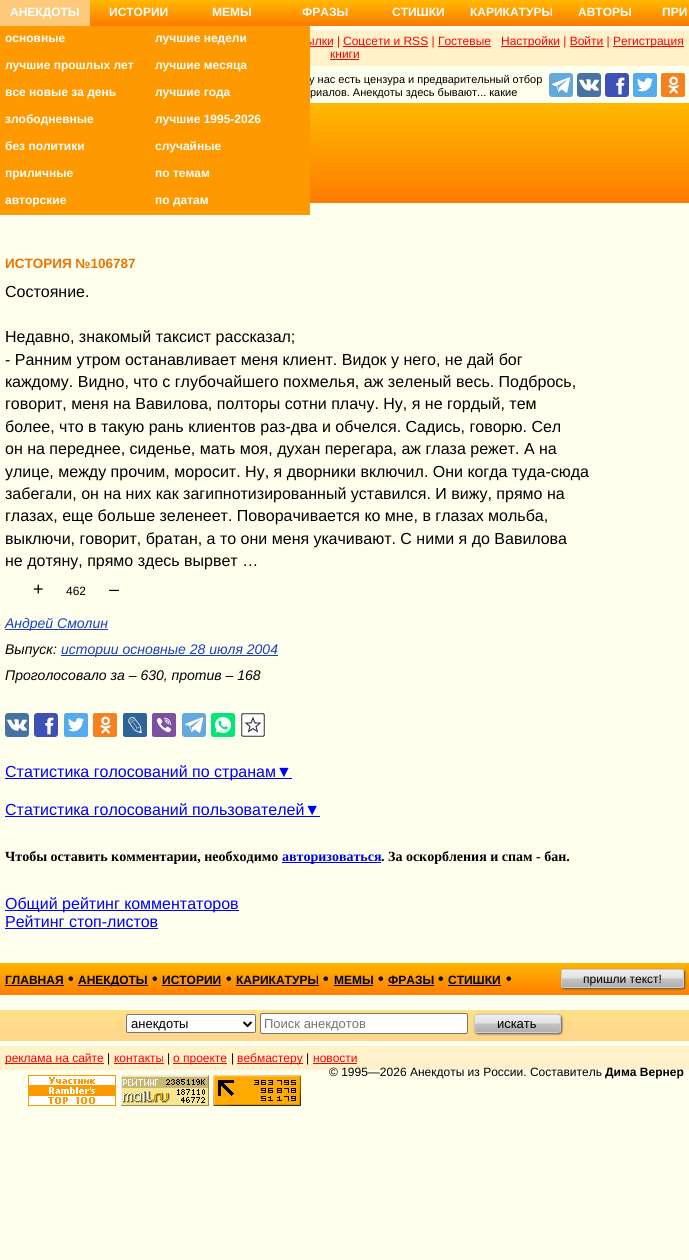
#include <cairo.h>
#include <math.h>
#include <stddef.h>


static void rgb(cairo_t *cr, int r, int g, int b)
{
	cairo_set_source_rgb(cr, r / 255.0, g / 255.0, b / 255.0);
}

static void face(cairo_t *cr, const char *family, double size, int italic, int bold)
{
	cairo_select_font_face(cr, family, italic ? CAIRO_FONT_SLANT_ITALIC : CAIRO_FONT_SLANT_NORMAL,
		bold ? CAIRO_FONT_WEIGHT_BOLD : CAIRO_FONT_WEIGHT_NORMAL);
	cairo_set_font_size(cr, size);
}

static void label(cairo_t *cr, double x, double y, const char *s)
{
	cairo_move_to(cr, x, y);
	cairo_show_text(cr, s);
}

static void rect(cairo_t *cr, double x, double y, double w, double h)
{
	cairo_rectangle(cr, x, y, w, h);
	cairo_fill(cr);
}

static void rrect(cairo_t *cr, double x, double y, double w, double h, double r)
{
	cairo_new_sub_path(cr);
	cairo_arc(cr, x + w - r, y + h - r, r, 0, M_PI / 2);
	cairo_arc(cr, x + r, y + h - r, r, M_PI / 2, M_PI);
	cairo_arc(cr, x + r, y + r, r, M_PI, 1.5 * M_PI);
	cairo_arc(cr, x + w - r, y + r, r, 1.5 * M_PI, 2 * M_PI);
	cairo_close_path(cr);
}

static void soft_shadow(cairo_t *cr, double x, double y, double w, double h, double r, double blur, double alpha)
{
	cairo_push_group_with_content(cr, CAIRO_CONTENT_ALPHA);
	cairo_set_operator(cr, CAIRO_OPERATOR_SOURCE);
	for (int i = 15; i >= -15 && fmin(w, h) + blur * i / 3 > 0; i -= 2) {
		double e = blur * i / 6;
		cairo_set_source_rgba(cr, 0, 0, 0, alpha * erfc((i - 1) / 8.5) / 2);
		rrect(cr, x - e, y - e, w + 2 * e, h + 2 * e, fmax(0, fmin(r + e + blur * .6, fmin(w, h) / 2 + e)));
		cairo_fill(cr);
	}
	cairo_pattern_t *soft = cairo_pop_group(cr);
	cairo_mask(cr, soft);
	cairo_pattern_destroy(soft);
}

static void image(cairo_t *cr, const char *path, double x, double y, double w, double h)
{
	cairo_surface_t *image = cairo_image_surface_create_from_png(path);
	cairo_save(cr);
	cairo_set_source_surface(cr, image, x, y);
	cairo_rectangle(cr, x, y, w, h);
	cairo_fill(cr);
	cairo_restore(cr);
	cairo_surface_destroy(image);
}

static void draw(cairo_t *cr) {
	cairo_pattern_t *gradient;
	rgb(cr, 255, 255, 238);
	cairo_paint(cr);
	gradient = cairo_pattern_create_linear(345, 0, 345, 26);
	cairo_pattern_add_color_stop_rgba(gradient, 0, 1, 0.722, 0, 1);
	cairo_pattern_add_color_stop_rgba(gradient, 1, 1, 0.478, 0, 1);
	cairo_set_source(cr, gradient);
	cairo_pattern_destroy(gradient);
	rect(cr, 90, 0, 599, 26);
	rgb(cr, 255, 201, 124);
	rect(cr, 0, 0, 90, 26);
	face(cr, "Liberation Sans", 12, 0, 1);
	rgb(cr, 255, 255, 255);
	label(cr, 10, 16, "АНЕКДОТЫ");
	rgb(cr, 255, 153, 0);
	rect(cr, 0, 26, 150, 189);
	rgb(cr, 255, 255, 255);
	label(cr, 5, 42, "основные");
	label(cr, 5, 69, "лучшие прошлых лет");
	label(cr, 5, 96, "все новые за день");
	label(cr, 5, 123, "злободневные");
	label(cr, 5, 150, "без политики");
	label(cr, 5, 177, "приличные");
	label(cr, 5, 204, "авторские");
	rgb(cr, 255, 242, 202);
	rect(cr, 310, 30, 379, 36);
	rgb(cr, 255, 0, 0);
	rect(cr, 310, 46, 23, 1);
	face(cr, "Liberation Sans", 12, 0, 0);
	label(cr, 306, 45, "ылки |");
	face(cr, "Liberation Sans", 11, 0, 0);
	rgb(cr, 0, 0, 0);
	label(cr, 309, 83, "у нас есть цензура и предварительный отбор");
	rgb(cr, 255, 153, 0);
	rect(cr, 150, 26, 160, 189);
	face(cr, "Liberation Sans", 12, 0, 1);
	rgb(cr, 255, 255, 255);
	label(cr, 155, 42, "лучшие недели");
	label(cr, 155, 69, "лучшие месяца");
	label(cr, 155, 96, "лучшие года");
	label(cr, 155, 123, "лучшие 1995-2026");
	label(cr, 155, 150, "случайные");
	label(cr, 155, 177, "по темам");
	label(cr, 155, 204, "по датам");
	label(cr, 109, 16, "ИСТОРИИ");
	label(cr, 212, 16, "МЕМЫ");
	label(cr, 302, 16, "ФРАЗЫ");
	label(cr, 392, 16, "СТИШКИ");
	label(cr, 470, 16, "КАРИКАТУРЫ");
	label(cr, 578, 16, "АВТОРЫ");
	label(cr, 662, 16, "ПРИ");
	rgb(cr, 255, 0, 0);
	rect(cr, 343, 46, 85, 1);
	face(cr, "Liberation Sans", 12, 0, 0);
	label(cr, 343, 45, "Соцсети и RSS | Гостевые");
	rect(cr, 501, 46, 59, 1);
	label(cr, 501, 45, "Настройки | Войти |");
	rect(cr, 613, 46, 71, 1);
	label(cr, 613, 45, "Регистрация");
	rect(cr, 570, 46, 34, 1);
	label(cr, 330, 58, "книги");
	rect(cr, 438, 46, 53, 1);
	rect(cr, 330, 59, 29, 1);
	image(cr, "image0.png", 310, 103, 379, 100);
	face(cr, "Liberation Sans", 11, 0, 0);
	rgb(cr, 0, 0, 0);
	label(cr, 310, 96, "риалов. Анекдоты здесь бывают... какие");
	image(cr, "image1.png", 549, 73, 24, 24);
	image(cr, "image2.png", 577, 73, 24, 24);
	image(cr, "image3.png", 605, 73, 24, 24);
	image(cr, "image4.png", 633, 73, 24, 24);
	image(cr, "image5.png", 661, 73, 24, 24);
	face(cr, "Liberation Sans", 13.5, 0, 1);
	rgb(cr, 235, 116, 0);
	label(cr, 5, 268, "ИСТОРИЯ №106787");
	face(cr, "Liberation Sans", 16, 0, 0);
	rgb(cr, 0, 0, 0);
	label(cr, 5, 297, "Состояние.");
	label(cr, 5, 342, "Недавно, знакомый таксист рассказал;");
	label(cr, 5, 365, "- Ранним утром останавливает меня клиент. Видок у него, не дай бог");
	label(cr, 5, 387, "каждому. Видно, что с глубочайшего похмелья, аж зеленый весь. Подбрось,");
	label(cr, 5, 409, "говорит, меня на Вавилова, полторы сотни плачу. Ну, я не гордый, тем");
	label(cr, 5, 432, "более, что в такую рань клиентов раз-два и обчелся. Садись, говорю. Сел");
	label(cr, 5, 454, "он на переднее, сиденье, мать моя, духан перегара, аж глаза режет. А на");
	label(cr, 5, 477, "улице, между прочим, моросит. Ну, я дворники включил. Они когда туда-сюда");
	label(cr, 5, 499, "забегали, он на них как загипнотизированный уставился. И вижу, прямо на");
	label(cr, 5, 521, "глазах, еще больше зеленеет. Поворачивается ко мне, в глазах мольба,");
	label(cr, 5, 544, "выключи, говорит, братан, а то они меня укачивают. С ними я до Вавилова");
	label(cr, 5, 566, "не дотяну, прямо здесь вырвет …");
	face(cr, "Liberation Sans", 18, 0, 0);
	label(cr, 33, 595, "+");
	face(cr, "Liberation Sans", 12, 0, 0);
	label(cr, 66, 595, "462");
	face(cr, "Liberation Sans", 18, 0, 0);
	label(cr, 109, 595, "–");
	rgb(cr, 26, 61, 193);
	rect(cr, 5, 629, 103, 1);
	face(cr, "Liberation Sans", 14, 1, 0);
	label(cr, 5, 628, "Андрей Смолин");
	rgb(cr, 0, 0, 0);
	label(cr, 5, 654, "Выпуск:");
	rgb(cr, 26, 61, 193);
	rect(cr, 61, 655, 217, 1);
	label(cr, 61, 654, "истории основные 28 июля 2004");
	rgb(cr, 0, 0, 0);
	label(cr, 5, 680, "Проголосовало за – 630, против – 168");
	image(cr, "image2.png", 5, 713, 24, 24);
	image(cr, "image3.png", 34, 713, 24, 24);
	image(cr, "image4.png", 64, 713, 24, 24);
	image(cr, "image5.png", 93, 713, 24, 24);
	image(cr, "image6.png", 123, 713, 24, 24);
	image(cr, "image7.png", 152, 713, 24, 24);
	image(cr, "image1.png", 182, 713, 24, 24);
	image(cr, "image8.png", 211, 713, 24, 24);
	image(cr, "image9.png", 241, 713, 24, 24);
	rgb(cr, 0, 0, 255);
	rect(cr, 5, 778, 287, 1);
	face(cr, "Liberation Sans", 16, 0, 0);
	label(cr, 5, 777, "Статистика голосований по странам▼");
	label(cr, 5, 815, "Статистика голосований пользователей▼");
	rect(cr, 5, 816, 315, 1);
	face(cr, "Liberation Serif", 14, 0, 1);
	rgb(cr, 0, 0, 0);
	label(cr, 5, 861, "Чтобы оставить комментарии, необходимо");
	rgb(cr, 0, 0, 238);
	rect(cr, 282, 862, 99, 1);
	label(cr, 282, 861, "авторизоваться");
	rgb(cr, 0, 0, 0);
	label(cr, 381, 861, ". За оскорбления и спам - бан.");
	rgb(cr, 0, 0, 255);
	rect(cr, 5, 910, 234, 1);
	face(cr, "Liberation Sans", 16, 0, 0);
	label(cr, 5, 909, "Общий рейтинг комментаторов");
	label(cr, 5, 927, "Рейтинг стоп-листов");
	rect(cr, 5, 928, 153, 1);
	gradient = cairo_pattern_create_linear(345, 963, 345, 995);
	cairo_pattern_add_color_stop_rgba(gradient, 0, 1, 0.71, 0, 1);
	cairo_pattern_add_color_stop_rgba(gradient, 1, 1, 0.498, 0, 1);
	cairo_set_source(cr, gradient);
	cairo_pattern_destroy(gradient);
	rect(cr, 0, 963, 689, 32);
	face(cr, "Liberation Sans", 12, 0, 1);
	rgb(cr, 0, 0, 0);
	label(cr, 5, 984, "ГЛАВНАЯ");
	rect(cr, 5, 985, 59, 1);
	face(cr, "Liberation Sans", 16, 0, 1);
	label(cr, 68, 984, "•");
	rect(cr, 78, 985, 70, 1);
	face(cr, "Liberation Sans", 12, 0, 1);
	label(cr, 78, 984, "АНЕКДОТЫ");
	face(cr, "Liberation Sans", 16, 0, 1);
	label(cr, 152, 984, "•");
	face(cr, "Liberation Sans", 12, 0, 1);
	label(cr, 162, 984, "ИСТОРИИ");
	rect(cr, 162, 985, 59, 1);
	face(cr, "Liberation Sans", 16, 0, 1);
	label(cr, 226, 984, "•");
	face(cr, "Liberation Sans", 12, 0, 1);
	label(cr, 236, 984, "КАРИКАТУРЫ");
	rect(cr, 236, 985, 83, 1);
	face(cr, "Liberation Sans", 16, 0, 1);
	label(cr, 323, 984, "•");
	face(cr, "Liberation Sans", 12, 0, 1);
	label(cr, 334, 984, "МЕМЫ");
	rect(cr, 334, 985, 39, 1);
	face(cr, "Liberation Sans", 16, 0, 1);
	label(cr, 378, 984, "•");
	face(cr, "Liberation Sans", 12, 0, 1);
	label(cr, 388, 984, "ФРАЗЫ");
	rect(cr, 388, 985, 46, 1);
	face(cr, "Liberation Sans", 16, 0, 1);
	label(cr, 438, 984, "•");
	face(cr, "Liberation Sans", 12, 0, 1);
	label(cr, 448, 984, "СТИШКИ");
	rect(cr, 448, 985, 53, 1);
	face(cr, "Liberation Sans", 16, 0, 1);
	label(cr, 506, 984, "•");
	rgb(cr, 85, 85, 85);
	soft_shadow(cr, 562, 970, 123, 19, 2, 1, 1);
	cairo_save(cr);
	rrect(cr, 561, 969, 123, 19, 2);
	cairo_clip(cr);
	gradient = cairo_pattern_create_linear(623, 970, 623, 987);
	cairo_pattern_add_color_stop_rgba(gradient, 0, 0.933, 0.933, 0.933, 1);
	cairo_pattern_add_color_stop_rgba(gradient, 0.49, 0.882, 0.882, 0.882, 1);
	cairo_pattern_add_color_stop_rgba(gradient, 0.51, 0.769, 0.769, 0.769, 1);
	cairo_pattern_add_color_stop_rgba(gradient, 1, 0.69, 0.69, 0.69, 1);
	cairo_set_source(cr, gradient);
	cairo_pattern_destroy(gradient);
	rect(cr, 561, 970, 123, 17);
	cairo_restore(cr);
	rrect(cr, 561.5, 969.5, 122, 18, 1.5);
	rgb(cr, 204, 204, 204);
	cairo_set_line_width(cr, 1);
	cairo_stroke(cr);
	face(cr, "Liberation Sans", 12, 0, 0);
	rgb(cr, 0, 0, 0);
	label(cr, 583, 983, "пришли текст!");
	gradient = cairo_pattern_create_linear(345, 1010, 345, 1041);
	cairo_pattern_add_color_stop_rgba(gradient, 0, 1, 0.882, 0.541, 1);
	cairo_pattern_add_color_stop_rgba(gradient, 1, 1, 0.835, 0.541, 1);
	cairo_set_source(cr, gradient);
	cairo_pattern_destroy(gradient);
	rect(cr, 0, 1010, 689, 31);
	rgb(cr, 255, 255, 255);
	rrect(cr, 126.5, 1014.5, 129, 18, 1.5);
	cairo_fill_preserve(cr);
	rgb(cr, 118, 118, 118);
	cairo_stroke(cr);
	cairo_new_path(cr);
	cairo_move_to(cr, 243.5, 1022);
	cairo_line_to(cr, 247.5, 1026);
	cairo_line_to(cr, 251.5, 1022);
	rgb(cr, 0, 0, 0);
	cairo_set_line_width(cr, 2);
	cairo_stroke(cr);
	face(cr, "Liberation Sans", 13, 0, 0);
	label(cr, 131, 1028, "анекдоты");
	rgb(cr, 255, 255, 255);
	rrect(cr, 260.5, 1013.5, 207, 20, 1.5);
	cairo_fill_preserve(cr);
	rgb(cr, 118, 118, 118);
	cairo_set_line_width(cr, 1);
	cairo_stroke(cr);
	rgb(cr, 117, 117, 117);
	label(cr, 264, 1028, "Поиск анекдотов");
	rgb(cr, 85, 85, 85);
	soft_shadow(cr, 475, 1015, 87, 19, 3, 1, 1);
	cairo_save(cr);
	rrect(cr, 474, 1014, 87, 19, 3);
	cairo_clip(cr);
	gradient = cairo_pattern_create_linear(518, 1015, 518, 1032);
	cairo_pattern_add_color_stop_rgba(gradient, 0, 0.933, 0.933, 0.933, 1);
	cairo_pattern_add_color_stop_rgba(gradient, 0.49, 0.882, 0.882, 0.882, 1);
	cairo_pattern_add_color_stop_rgba(gradient, 0.51, 0.769, 0.769, 0.769, 1);
	cairo_pattern_add_color_stop_rgba(gradient, 1, 0.69, 0.69, 0.69, 1);
	cairo_set_source(cr, gradient);
	cairo_pattern_destroy(gradient);
	rect(cr, 474, 1015, 87, 17);
	cairo_restore(cr);
	rrect(cr, 474.5, 1014.5, 86, 18, 2.5);
	rgb(cr, 204, 204, 204);
	cairo_stroke(cr);
	rgb(cr, 0, 0, 0);
	label(cr, 497, 1028, "искать");
	rgb(cr, 255, 242, 202);
	rect(cr, 0, 1046, 689, 24);
	rgb(cr, 255, 0, 0);
	rect(cr, 5, 1063, 99, 1);
	face(cr, "Liberation Sans", 12, 0, 0);
	label(cr, 5, 1062, "реклама на сайте");
	rgb(cr, 0, 0, 0);
	label(cr, 107, 1062, "|");
	rgb(cr, 255, 0, 0);
	label(cr, 114, 1062, "контакты");
	rect(cr, 114, 1063, 50, 1);
	rgb(cr, 0, 0, 0);
	label(cr, 167, 1062, "|");
	rgb(cr, 255, 0, 0);
	rect(cr, 173, 1063, 54, 1);
	label(cr, 173, 1062, "о проекте");
	rgb(cr, 0, 0, 0);
	label(cr, 231, 1062, "|");
	rgb(cr, 255, 0, 0);
	rect(cr, 237, 1063, 66, 1);
	label(cr, 237, 1062, "вебмастеру");
	rgb(cr, 0, 0, 0);
	label(cr, 306, 1062, "|");
	rgb(cr, 255, 0, 0);
	label(cr, 313, 1062, "новости");
	rect(cr, 313, 1063, 44, 1);
	rgb(cr, 0, 0, 0);
	label(cr, 329, 1076, "© 1995—2026 Анекдоты из России. Составитель");
	face(cr, "Liberation Sans", 12, 0, 1);
	label(cr, 605, 1076, "Дима Вернер");
	image(cr, "image10.png", 28, 1075, 88, 31);
	image(cr, "image11.png", 121, 1075, 88, 31);
	image(cr, "image12.png", 213, 1075, 88, 31);
}

int main(void) {
	cairo_surface_t *surface = cairo_image_surface_create(CAIRO_FORMAT_RGB24, 689, 1260);
	cairo_t *cr = cairo_create(surface);
	cairo_font_options_t *options = cairo_font_options_create();
	cairo_font_options_set_hint_metrics(options, CAIRO_HINT_METRICS_OFF);
	cairo_font_options_set_hint_style(options, CAIRO_HINT_STYLE_NONE);
	cairo_set_font_options(cr, options);
	cairo_set_miter_limit(cr, 4);
	draw(cr);
	cairo_surface_write_to_png(surface, "render.png");
	cairo_font_options_destroy(options);
	cairo_destroy(cr);
	cairo_surface_destroy(surface);
	return 0;
}
